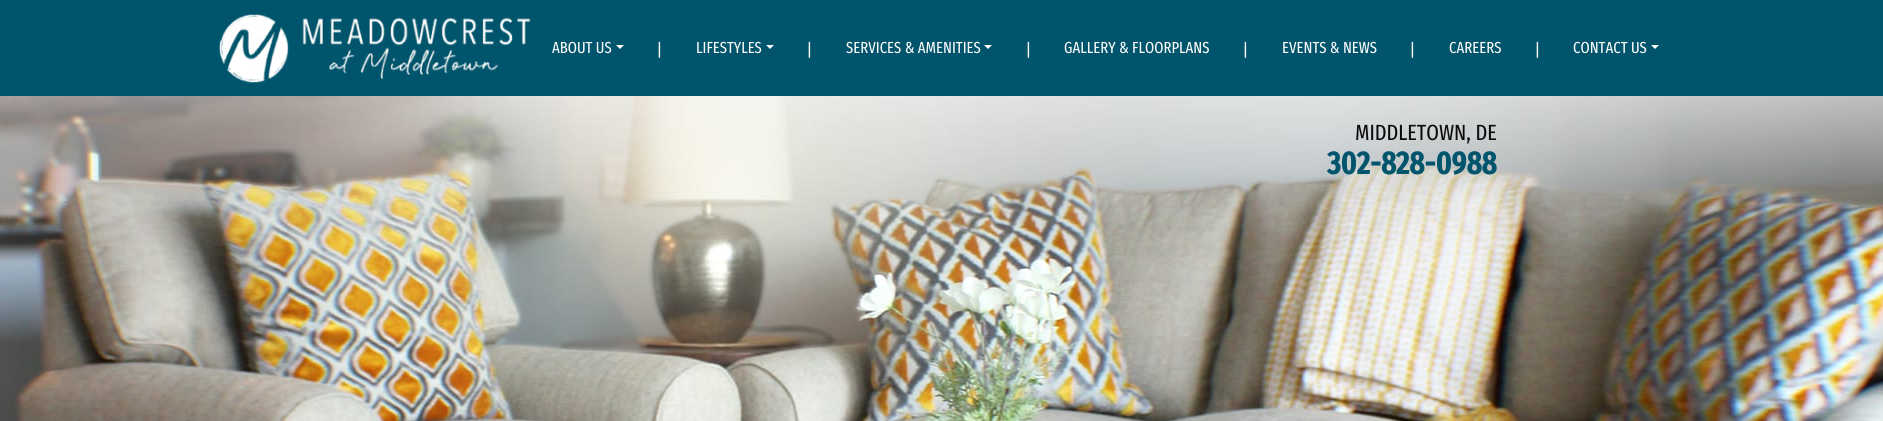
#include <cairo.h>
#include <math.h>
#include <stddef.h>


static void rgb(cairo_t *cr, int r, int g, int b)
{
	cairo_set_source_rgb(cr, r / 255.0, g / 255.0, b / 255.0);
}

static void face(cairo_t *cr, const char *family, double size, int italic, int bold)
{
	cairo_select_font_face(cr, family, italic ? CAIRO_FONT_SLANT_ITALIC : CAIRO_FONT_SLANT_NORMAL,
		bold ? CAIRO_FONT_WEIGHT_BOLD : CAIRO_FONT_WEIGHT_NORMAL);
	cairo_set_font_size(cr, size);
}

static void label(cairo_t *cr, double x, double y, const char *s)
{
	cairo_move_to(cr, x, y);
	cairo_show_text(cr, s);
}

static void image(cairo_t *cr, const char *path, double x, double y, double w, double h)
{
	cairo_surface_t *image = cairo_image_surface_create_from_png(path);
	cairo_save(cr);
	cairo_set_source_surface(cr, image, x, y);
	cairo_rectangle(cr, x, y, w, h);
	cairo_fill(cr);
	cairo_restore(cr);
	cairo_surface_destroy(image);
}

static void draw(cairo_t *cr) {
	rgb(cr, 0, 85, 108);
	cairo_paint(cr);
	image(cr, "image0.png", 219, 14, 312, 69);
	face(cr, "Fira Sans Extra Condensed", 16, 0, 0);
	rgb(cr, 252, 252, 252);
	label(cr, 552, 53, "ABOUT US");
	cairo_new_path(cr);
	cairo_move_to(cr, 616, 45);
	cairo_line_to(cr, 624, 45);
	cairo_line_to(cr, 620, 49);
	cairo_close_path(cr);
	cairo_fill(cr);
	face(cr, "Open Sans SemiBold", 16, 0, 0);
	label(cr, 655, 54, "|");
	face(cr, "Fira Sans Extra Condensed", 16, 0, 0);
	label(cr, 696, 53, "LIFESTYLES");
	cairo_new_path(cr);
	cairo_move_to(cr, 766, 45);
	cairo_line_to(cr, 774, 45);
	cairo_line_to(cr, 770, 49);
	cairo_close_path(cr);
	cairo_fill(cr);
	face(cr, "Open Sans SemiBold", 16, 0, 0);
	label(cr, 805, 54, "|");
	face(cr, "Fira Sans Extra Condensed", 16, 0, 0);
	label(cr, 846, 53, "SERVICES & AMENITIES");
	cairo_new_path(cr);
	cairo_move_to(cr, 984, 45);
	cairo_line_to(cr, 992, 45);
	cairo_line_to(cr, 988, 49);
	cairo_close_path(cr);
	cairo_fill(cr);
	face(cr, "Open Sans SemiBold", 16, 0, 0);
	label(cr, 1024, 54, "|");
	face(cr, "Fira Sans Extra Condensed", 16, 0, 0);
	label(cr, 1064, 53, "GALLERY & FLOORPLANS");
	face(cr, "Open Sans SemiBold", 16, 0, 0);
	label(cr, 1241, 54, "|");
	face(cr, "Fira Sans Extra Condensed", 16, 0, 0);
	label(cr, 1282, 53, "EVENTS & NEWS");
	face(cr, "Open Sans SemiBold", 16, 0, 0);
	label(cr, 1408, 54, "|");
	face(cr, "Fira Sans Extra Condensed", 16, 0, 0);
	label(cr, 1449, 53, "CAREERS");
	face(cr, "Open Sans SemiBold", 16, 0, 0);
	label(cr, 1533, 54, "|");
	face(cr, "Fira Sans Extra Condensed", 16, 0, 0);
	label(cr, 1573, 53, "CONTACT US");
	cairo_new_path(cr);
	cairo_move_to(cr, 1651, 45);
	cairo_line_to(cr, 1659, 45);
	cairo_line_to(cr, 1655, 49);
	cairo_close_path(cr);
	cairo_fill(cr);
	image(cr, "image1.png", 0, 96, 1883, 325);
	face(cr, "Fira Sans Extra Condensed", 22, 0, 0);
	rgb(cr, 12, 11, 11);
	label(cr, 1355, 140, "MIDDLETOWN, DE");
	face(cr, "Fira Sans Extra Condensed", 32, 0, 1);
	rgb(cr, 0, 85, 108);
	label(cr, 1327, 174, "302-828-0988");
}

int main(void) {
	cairo_surface_t *surface = cairo_image_surface_create(CAIRO_FORMAT_RGB24, 1883, 421);
	cairo_t *cr = cairo_create(surface);
	cairo_font_options_t *options = cairo_font_options_create();
	cairo_font_options_set_hint_metrics(options, CAIRO_HINT_METRICS_OFF);
	cairo_font_options_set_hint_style(options, CAIRO_HINT_STYLE_NONE);
	cairo_set_font_options(cr, options);
	cairo_set_miter_limit(cr, 4);
	draw(cr);
	cairo_surface_write_to_png(surface, "render.png");
	cairo_font_options_destroy(options);
	cairo_destroy(cr);
	cairo_surface_destroy(surface);
	return 0;
}
